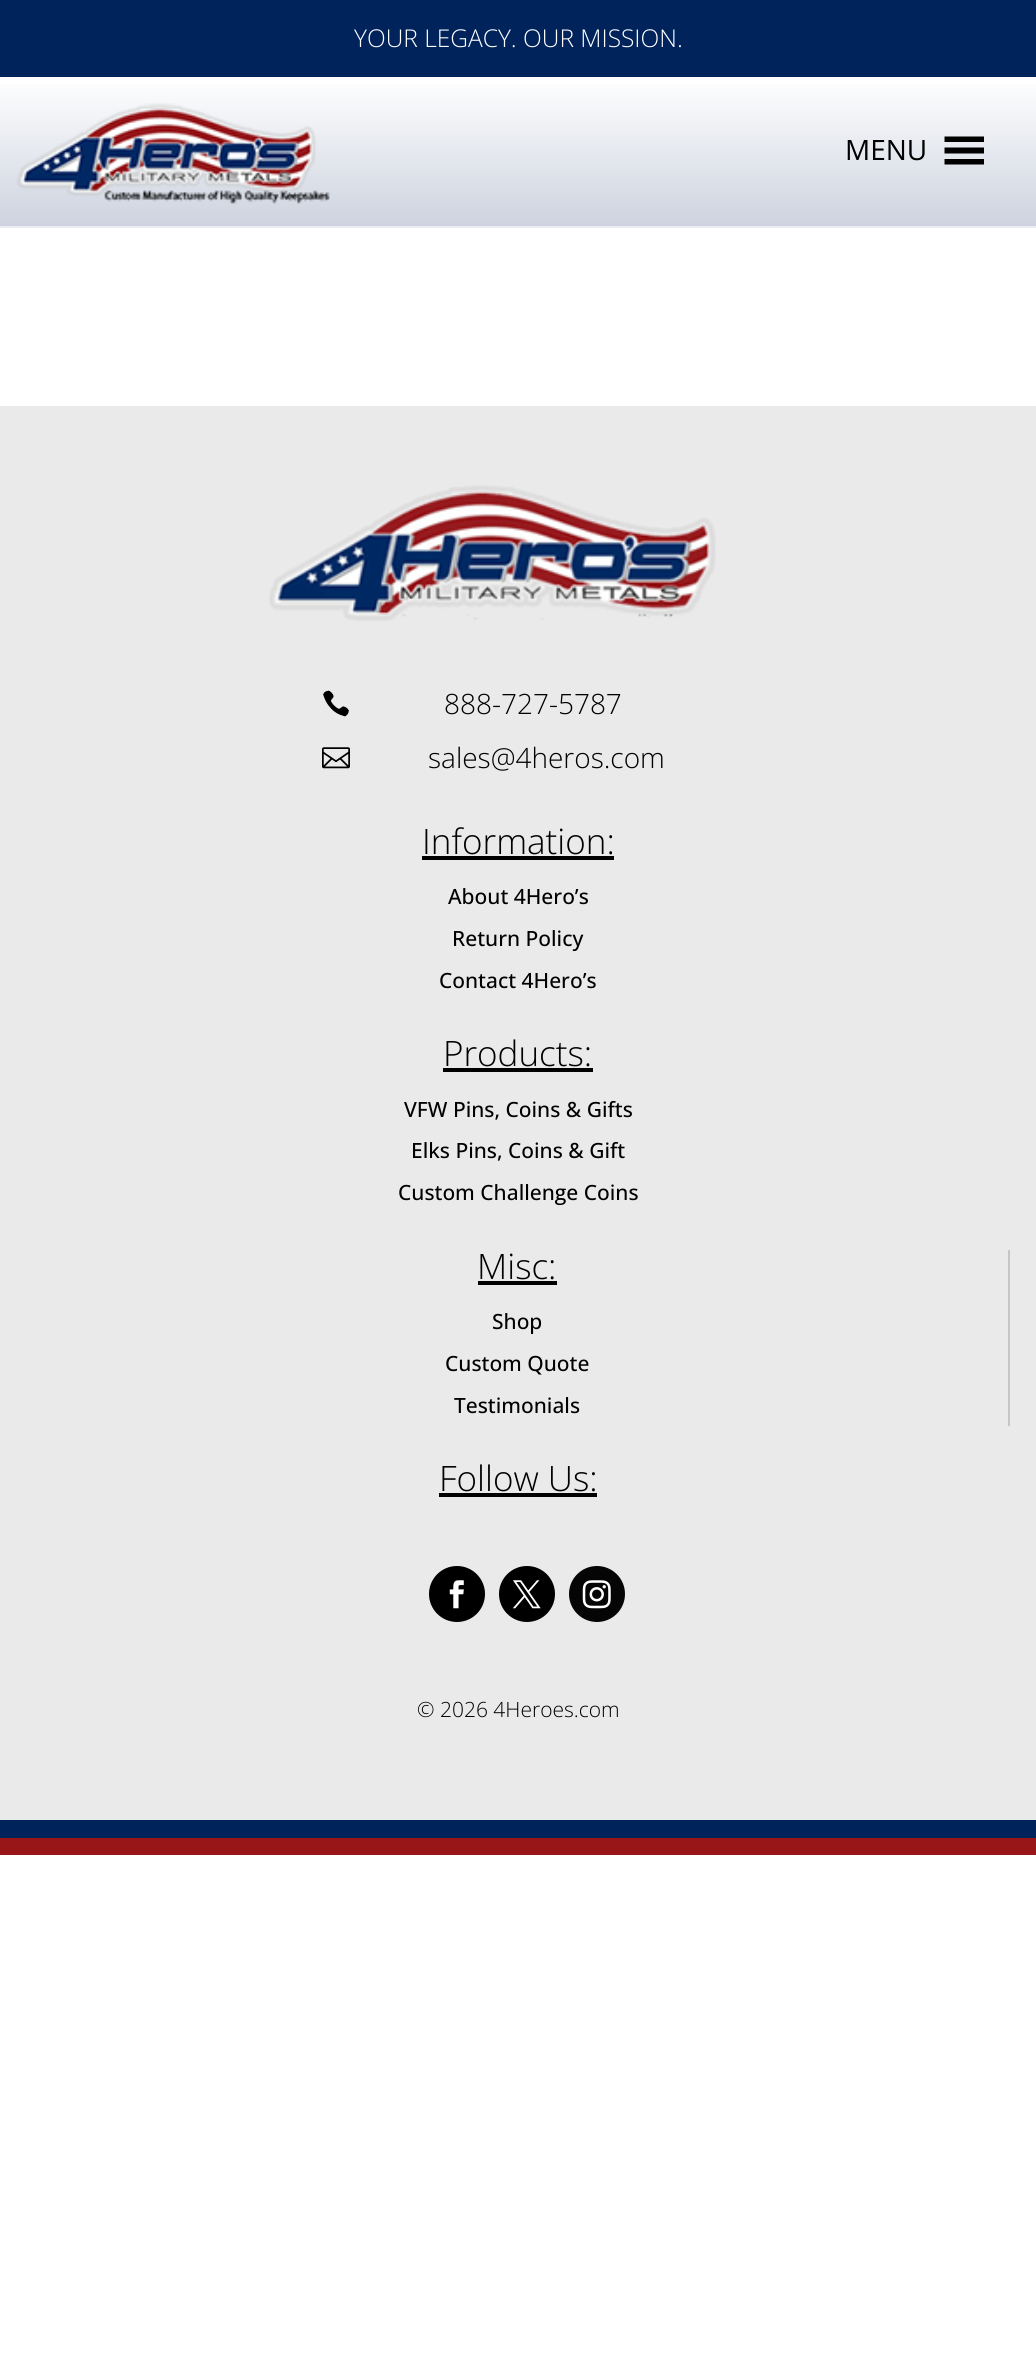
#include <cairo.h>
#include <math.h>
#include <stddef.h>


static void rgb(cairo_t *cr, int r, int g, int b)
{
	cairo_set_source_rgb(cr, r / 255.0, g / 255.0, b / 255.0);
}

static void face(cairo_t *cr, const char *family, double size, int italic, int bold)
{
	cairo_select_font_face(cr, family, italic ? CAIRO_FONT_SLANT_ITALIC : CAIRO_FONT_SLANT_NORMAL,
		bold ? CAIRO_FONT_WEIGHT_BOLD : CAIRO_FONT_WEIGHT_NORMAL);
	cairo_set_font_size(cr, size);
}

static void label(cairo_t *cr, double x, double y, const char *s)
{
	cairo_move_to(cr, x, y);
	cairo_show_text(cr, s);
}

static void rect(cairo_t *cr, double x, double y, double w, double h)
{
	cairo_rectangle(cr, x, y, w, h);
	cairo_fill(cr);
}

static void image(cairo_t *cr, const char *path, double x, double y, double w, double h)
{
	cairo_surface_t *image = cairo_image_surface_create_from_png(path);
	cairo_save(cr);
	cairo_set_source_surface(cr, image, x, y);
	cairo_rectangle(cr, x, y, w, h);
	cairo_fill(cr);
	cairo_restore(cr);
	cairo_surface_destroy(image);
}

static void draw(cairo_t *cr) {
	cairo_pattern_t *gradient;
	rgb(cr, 255, 255, 255);
	cairo_paint(cr);
	rgb(cr, 1, 35, 91);
	rect(cr, 0, 0, 1036, 77);
	face(cr, "Open Sans Light", 24.5, 0, 0);
	rgb(cr, 255, 255, 255);
	label(cr, 354, 47, "YOUR LEGACY. OUR MISSION.");
	gradient = cairo_pattern_create_linear(518, 77, 518, 226);
	cairo_pattern_add_color_stop_rgba(gradient, 0, 1, 1, 1, 1);
	cairo_pattern_add_color_stop_rgba(gradient, 1, 0.804, 0.827, 0.875, 1);
	cairo_set_source(cr, gradient);
	cairo_pattern_destroy(gradient);
	rect(cr, 0, 84, 1036, 142);
	rgb(cr, 235, 237, 242);
	rect(cr, 0, 226, 1036, 2);
	image(cr, "image0.png", 16, 103, 314, 101);
	face(cr, "Open Sans", 28, 0, 0);
	rgb(cr, 0, 0, 0);
	label(cr, 845, 160, "MENU");
	cairo_new_path(cr);
	cairo_move_to(cr, 944.5, 164.5);
	cairo_line_to(cr, 984, 164.5);
	cairo_line_to(cr, 984, 159);
	cairo_line_to(cr, 944.5, 159);
	cairo_close_path(cr);
	cairo_move_to(cr, 944.5, 136.5);
	cairo_line_to(cr, 944.5, 142);
	cairo_line_to(cr, 984, 142);
	cairo_line_to(cr, 984, 136.5);
	cairo_close_path(cr);
	cairo_move_to(cr, 944.5, 153.5);
	cairo_line_to(cr, 984, 153.5);
	cairo_line_to(cr, 984, 147.5);
	cairo_line_to(cr, 944.5, 147.5);
	cairo_close_path(cr);
	cairo_fill(cr);
	rgb(cr, 234, 234, 234);
	rect(cr, 0, 406, 1036, 1414);
	image(cr, "image1.png", 269, 485, 447, 136);
	image(cr, "image2.png", 323, 690, 26, 27);
	face(cr, "Open Sans Light", 28, 0, 0);
	rgb(cr, 0, 0, 0);
	label(cr, 444, 714, "888-727-5787");
	image(cr, "image3.png", 322, 747, 28, 22);
	label(cr, 428, 768, "sales@4heros.com");
	face(cr, "Open Sans Light", 35, 0, 0);
	label(cr, 422, 854, "Information:");
	rect(cr, 422, 856, 192, 4);
	face(cr, "Open Sans Medium", 21, 0, 0);
	label(cr, 448, 904, "About 4Hero’s");
	label(cr, 452, 946, "Return Policy");
	label(cr, 439, 988, "Contact 4Hero’s");
	face(cr, "Open Sans Light", 35, 0, 0);
	label(cr, 443, 1066, "Products:");
	rect(cr, 443, 1068, 150, 4);
	face(cr, "Open Sans Medium", 21, 0, 0);
	label(cr, 404, 1117, "VFW Pins, Coins & Gifts");
	label(cr, 411, 1158, "Elks Pins, Coins & Gift");
	label(cr, 398, 1200, "Custom Challenge Coins");
	rgb(cr, 198, 198, 198);
	rect(cr, 1008, 1250, 2, 176);
	face(cr, "Open Sans Light", 35, 0, 0);
	rgb(cr, 0, 0, 0);
	label(cr, 477, 1279, "Misc:");
	rect(cr, 478, 1281, 79, 4);
	face(cr, "Open Sans Medium", 21, 0, 0);
	label(cr, 492, 1329, "Shop");
	label(cr, 445, 1371, "Custom Quote");
	label(cr, 454, 1413, "Testimonials");
	face(cr, "Open Sans Light", 35, 0, 0);
	label(cr, 439, 1491, "Follow Us:");
	rect(cr, 439, 1493, 158, 4);
	cairo_new_path(cr);
	cairo_arc(cr, 457, 1594, 28, 0, 2 * M_PI);
	cairo_fill(cr);
	image(cr, "image4.png", 449, 1580, 15, 29);
	cairo_arc(cr, 527, 1594, 28, 0, 2 * M_PI);
	cairo_fill(cr);
	image(cr, "image5.png", 512, 1580, 29, 29);
	rgb(cr, 5, 5, 5);
	cairo_arc(cr, 597, 1594, 28, 0, 2 * M_PI);
	cairo_fill(cr);
	image(cr, "image6.png", 582, 1580, 29, 29);
	face(cr, "Open Sans Light", 21, 0, 0);
	rgb(cr, 0, 0, 0);
	label(cr, 417, 1717, "© 2026 4Heroes.com");
	rgb(cr, 1, 35, 91);
	rect(cr, 0, 1820, 1036, 18);
	rgb(cr, 152, 22, 24);
	rect(cr, 0, 1838, 1036, 17);
}

int main(void) {
	cairo_surface_t *surface = cairo_image_surface_create(CAIRO_FORMAT_RGB24, 1036, 2366);
	cairo_t *cr = cairo_create(surface);
	cairo_font_options_t *options = cairo_font_options_create();
	cairo_font_options_set_hint_metrics(options, CAIRO_HINT_METRICS_OFF);
	cairo_font_options_set_hint_style(options, CAIRO_HINT_STYLE_NONE);
	cairo_set_font_options(cr, options);
	cairo_set_miter_limit(cr, 4);
	draw(cr);
	cairo_surface_write_to_png(surface, "render.png");
	cairo_font_options_destroy(options);
	cairo_destroy(cr);
	cairo_surface_destroy(surface);
	return 0;
}
